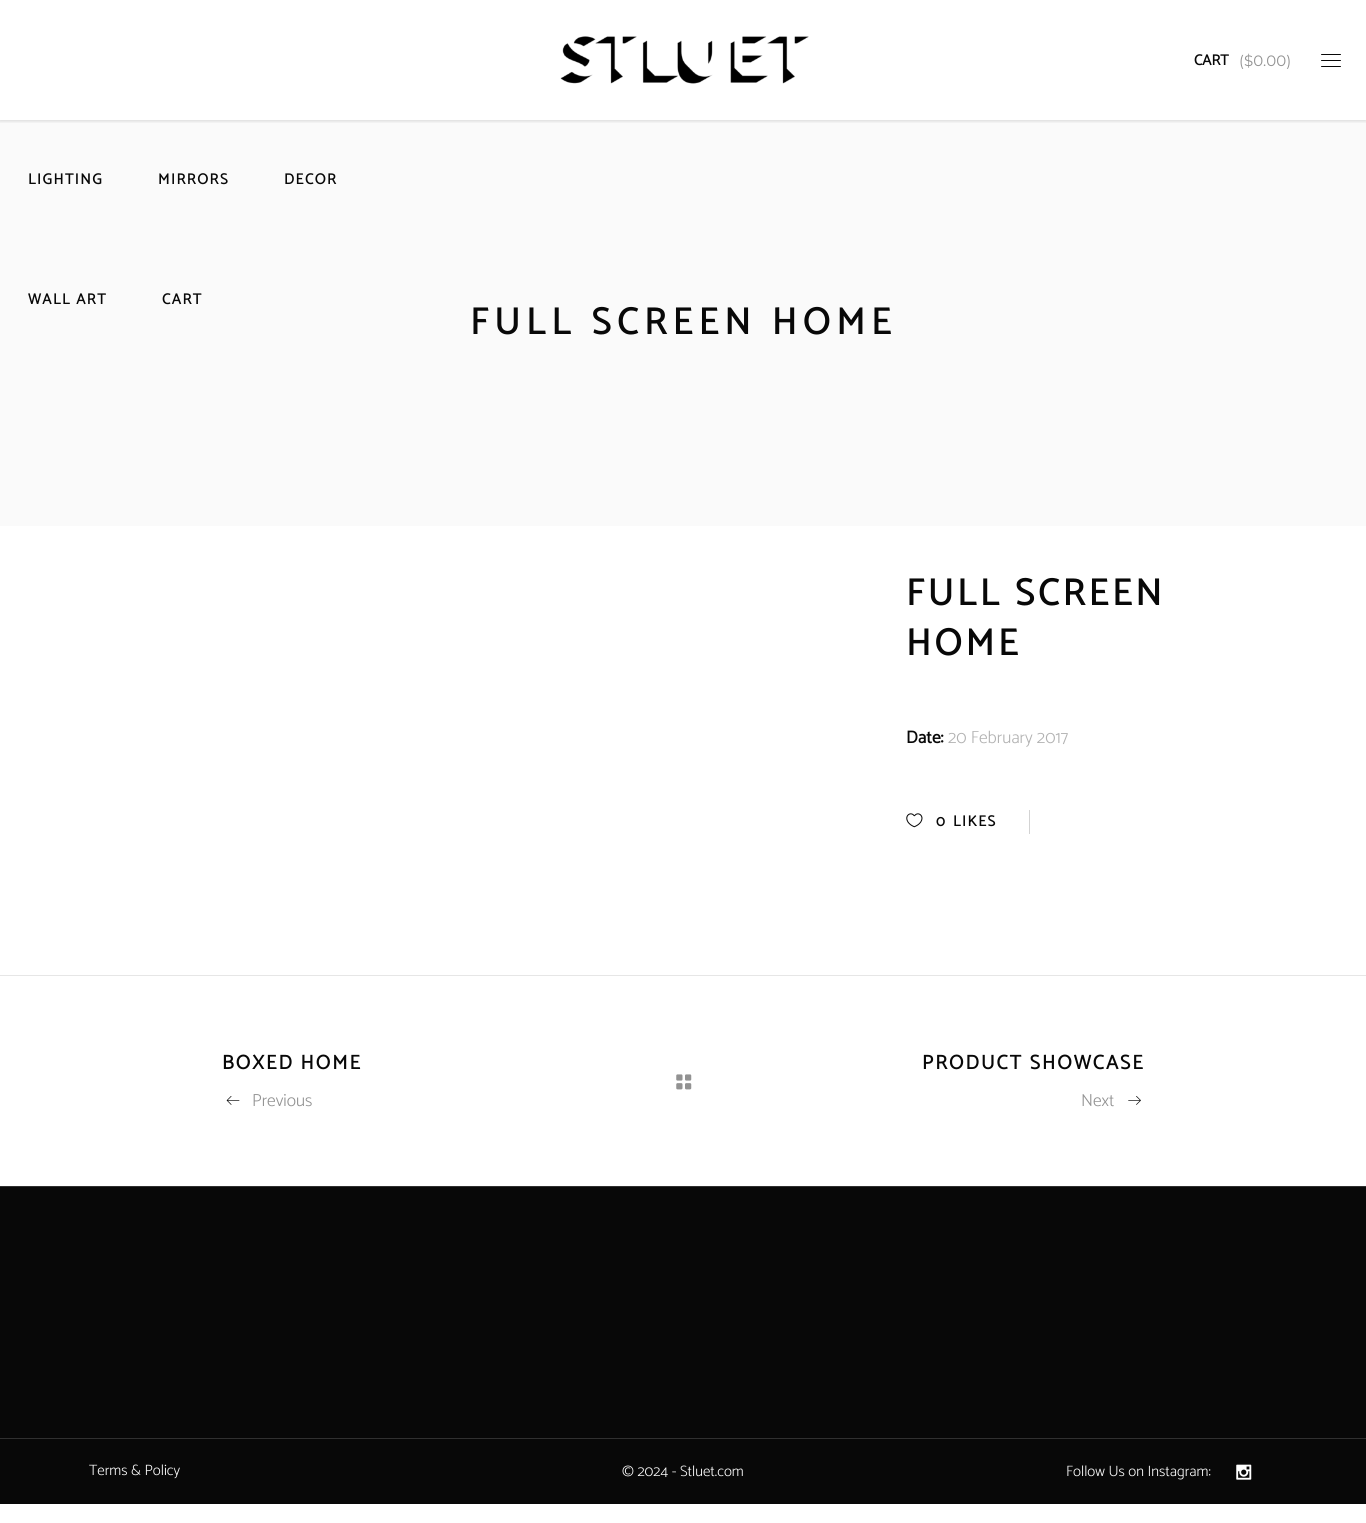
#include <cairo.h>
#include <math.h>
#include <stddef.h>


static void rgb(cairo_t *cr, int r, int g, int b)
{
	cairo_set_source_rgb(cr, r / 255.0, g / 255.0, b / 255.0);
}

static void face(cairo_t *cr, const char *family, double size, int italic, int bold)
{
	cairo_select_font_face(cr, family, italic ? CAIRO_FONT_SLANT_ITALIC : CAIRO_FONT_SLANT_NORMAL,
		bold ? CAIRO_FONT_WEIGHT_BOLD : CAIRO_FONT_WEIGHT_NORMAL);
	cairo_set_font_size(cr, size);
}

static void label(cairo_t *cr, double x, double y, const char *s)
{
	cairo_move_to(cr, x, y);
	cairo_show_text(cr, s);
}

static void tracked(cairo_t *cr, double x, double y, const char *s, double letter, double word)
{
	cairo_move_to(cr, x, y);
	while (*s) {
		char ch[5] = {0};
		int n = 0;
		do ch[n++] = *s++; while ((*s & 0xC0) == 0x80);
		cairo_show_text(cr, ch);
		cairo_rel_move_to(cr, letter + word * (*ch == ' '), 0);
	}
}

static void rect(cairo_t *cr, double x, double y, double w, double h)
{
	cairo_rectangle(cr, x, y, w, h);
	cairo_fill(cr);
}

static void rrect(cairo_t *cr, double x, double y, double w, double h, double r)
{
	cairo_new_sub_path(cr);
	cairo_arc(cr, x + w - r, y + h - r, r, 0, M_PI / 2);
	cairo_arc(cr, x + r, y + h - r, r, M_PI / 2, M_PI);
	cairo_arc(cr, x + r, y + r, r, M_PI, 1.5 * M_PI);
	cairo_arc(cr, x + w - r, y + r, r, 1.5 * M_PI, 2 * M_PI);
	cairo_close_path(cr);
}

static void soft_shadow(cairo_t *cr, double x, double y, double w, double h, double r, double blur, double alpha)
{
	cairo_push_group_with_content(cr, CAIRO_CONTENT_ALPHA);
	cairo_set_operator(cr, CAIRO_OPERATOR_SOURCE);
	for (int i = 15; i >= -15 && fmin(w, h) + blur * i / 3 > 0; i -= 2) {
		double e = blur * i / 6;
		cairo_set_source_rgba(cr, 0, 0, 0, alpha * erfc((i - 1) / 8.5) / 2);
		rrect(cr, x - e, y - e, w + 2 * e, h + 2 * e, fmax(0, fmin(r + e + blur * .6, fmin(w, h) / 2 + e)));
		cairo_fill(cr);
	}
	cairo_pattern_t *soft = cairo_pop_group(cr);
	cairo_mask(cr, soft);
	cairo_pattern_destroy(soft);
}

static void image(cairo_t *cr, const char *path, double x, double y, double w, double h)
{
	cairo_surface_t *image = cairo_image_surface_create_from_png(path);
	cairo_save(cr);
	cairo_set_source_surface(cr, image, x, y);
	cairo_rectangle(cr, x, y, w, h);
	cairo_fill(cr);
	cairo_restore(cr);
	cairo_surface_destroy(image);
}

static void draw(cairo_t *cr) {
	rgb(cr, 255, 255, 255);
	cairo_paint(cr);
	rgb(cr, 250, 250, 250);
	rect(cr, 0, 120, 1366, 406);
	cairo_save(cr);
	cairo_rectangle(cr, 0, 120, 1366, 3);
	cairo_clip(cr);
	rgb(cr, 0, 0, 0);
	soft_shadow(cr, 0, 1, 1366, 120, 0, 2, 0.15);
	cairo_restore(cr);
	image(cr, "image0.png", 560, 36, 249, 48);
	face(cr, "Catamaran", 15, 0, 1);
	rgb(cr, 8, 8, 8);
	label(cr, 1194, 65, "CART");
	face(cr, "Montserrat", 15, 0, 0);
	rgb(cr, 146, 146, 146);
	label(cr, 1239, 66, "($0.00)");
	rgb(cr, 8, 8, 8);
	rrect(cr, 1321, 54, 20, 1, 0.5);
	cairo_fill(cr);
	rrect(cr, 1321, 60, 20, 1, 0.5);
	cairo_fill(cr);
	rrect(cr, 1321, 66, 20, 1, 0.5);
	cairo_fill(cr);
	face(cr, "Catamaran", 15, 0, 1);
	tracked(cr, 28, 184, "LIGHTING", 1.5, 0);
	tracked(cr, 158, 184, "MIRRORS", 1.5, 0);
	tracked(cr, 284, 184, "DECOR", 1.5, 0);
	tracked(cr, 28, 304, "WALL ART", 1.5, 0);
	tracked(cr, 162, 304, "CART", 1.5, 0);
	face(cr, "Catamaran", 37.5, 0, 1);
	tracked(cr, 470, 334, "FULL SCREEN HOME", 6.25, 0);
	tracked(cr, 906, 605, "FULL SCREEN", 3.75, 0);
	tracked(cr, 906, 655, "HOME", 3.75, 0);
	face(cr, "Catamaran", 17.5, 0, 1);
	label(cr, 906, 743, "Date:");
	face(cr, "Catamaran Light", 17.5, 0, 0);
	rgb(cr, 177, 177, 177);
	label(cr, 948, 743, "20 February 2017");
	image(cr, "image1.png", 906, 813, 17, 15);
	face(cr, "Catamaran", 15, 0, 1);
	rgb(cr, 8, 8, 8);
	tracked(cr, 936, 826, "0", 1.5, 0);
	tracked(cr, 953, 826, "LIKES", 1.5, 0);
	rgb(cr, 211, 211, 211);
	rect(cr, 1029, 810, 1, 24);
	rgb(cr, 230, 230, 230);
	rect(cr, 0, 975, 1366, 1);
	face(cr, "Catamaran", 20, 0, 1);
	rgb(cr, 8, 8, 8);
	tracked(cr, 222, 1069, "BOXED HOME", 2, 0);
	image(cr, "image2.png", 226, 1096, 14, 9);
	face(cr, "Catamaran Light", 17.5, 0, 0);
	rgb(cr, 146, 146, 146);
	label(cr, 252, 1106, "Previous");
	image(cr, "image3.png", 676, 1074, 16, 16);
	face(cr, "Catamaran", 20, 0, 1);
	rgb(cr, 8, 8, 8);
	tracked(cr, 922, 1069, "PRODUCT SHOWCASE", 2, 0);
	face(cr, "Catamaran Light", 17.5, 0, 0);
	rgb(cr, 146, 146, 146);
	label(cr, 1081, 1106, "Next");
	image(cr, "image4.png", 1128, 1096, 13, 9);
	rgb(cr, 8, 8, 8);
	rect(cr, 0, 1187, 1366, 251);
	rgb(cr, 48, 48, 48);
	rect(cr, 0, 1186, 1366, 1);
	rgb(cr, 8, 8, 8);
	rect(cr, 0, 1439, 1366, 65);
	rgb(cr, 48, 48, 48);
	rect(cr, 0, 1438, 1366, 1);
	face(cr, "Catamaran Light", 15, 0, 0);
	rgb(cr, 250, 250, 250);
	label(cr, 89, 1475, "Terms & Policy");
	label(cr, 622, 1476, "© 2024 - Stluet.com");
	label(cr, 1066, 1476, "Follow Us on Instagram:");
	image(cr, "image5.png", 1236, 1464, 16, 16);
}

int main(void) {
	cairo_surface_t *surface = cairo_image_surface_create(CAIRO_FORMAT_RGB24, 1366, 1523);
	cairo_t *cr = cairo_create(surface);
	cairo_font_options_t *options = cairo_font_options_create();
	cairo_font_options_set_hint_metrics(options, CAIRO_HINT_METRICS_OFF);
	cairo_font_options_set_hint_style(options, CAIRO_HINT_STYLE_NONE);
	cairo_set_font_options(cr, options);
	cairo_set_miter_limit(cr, 4);
	draw(cr);
	cairo_surface_write_to_png(surface, "render.png");
	cairo_font_options_destroy(options);
	cairo_destroy(cr);
	cairo_surface_destroy(surface);
	return 0;
}
